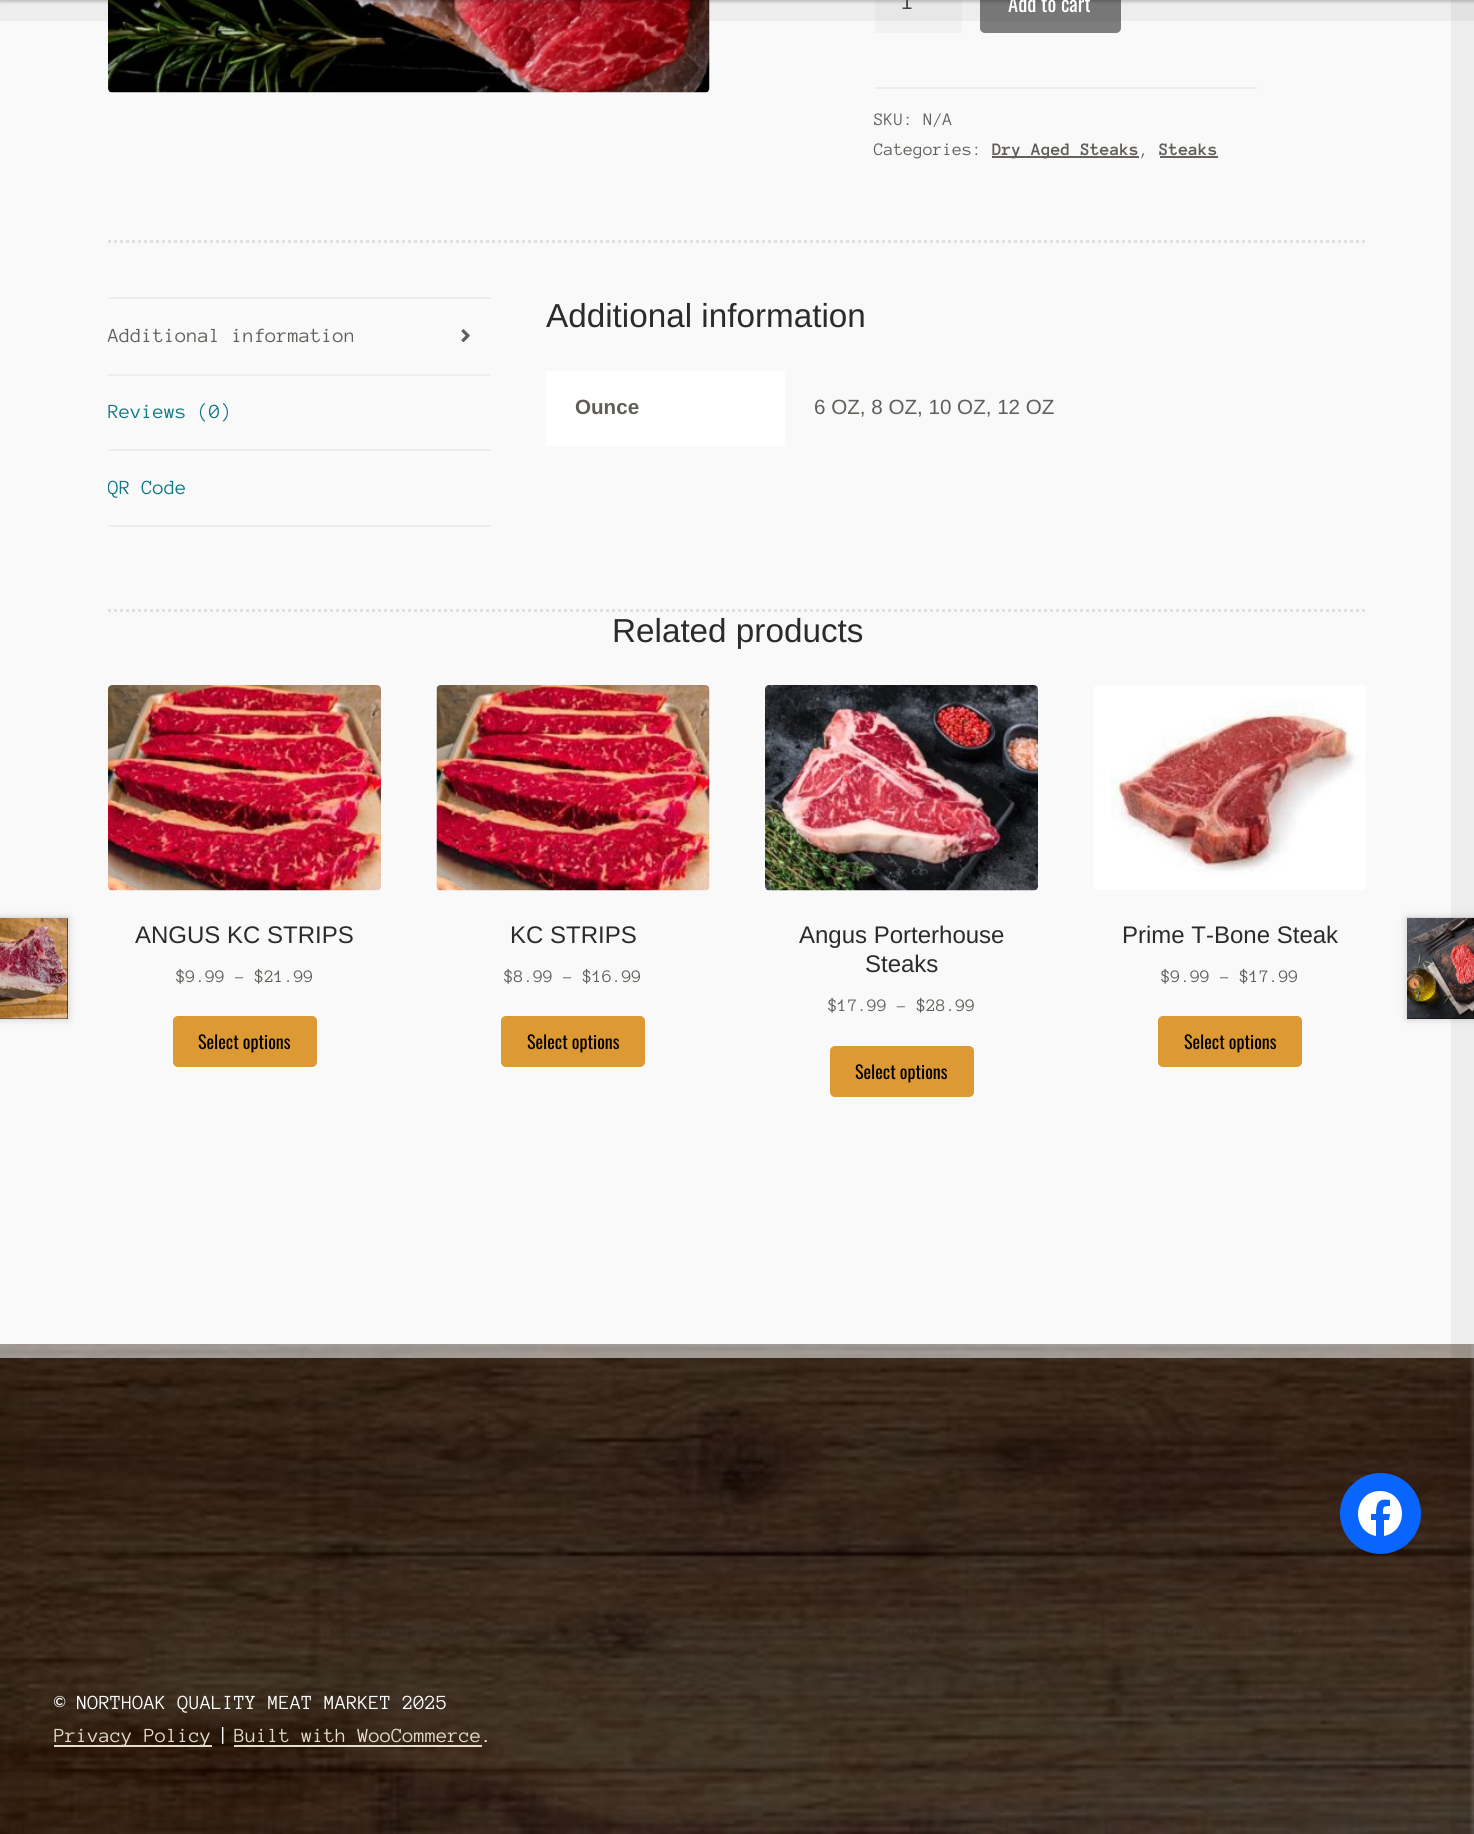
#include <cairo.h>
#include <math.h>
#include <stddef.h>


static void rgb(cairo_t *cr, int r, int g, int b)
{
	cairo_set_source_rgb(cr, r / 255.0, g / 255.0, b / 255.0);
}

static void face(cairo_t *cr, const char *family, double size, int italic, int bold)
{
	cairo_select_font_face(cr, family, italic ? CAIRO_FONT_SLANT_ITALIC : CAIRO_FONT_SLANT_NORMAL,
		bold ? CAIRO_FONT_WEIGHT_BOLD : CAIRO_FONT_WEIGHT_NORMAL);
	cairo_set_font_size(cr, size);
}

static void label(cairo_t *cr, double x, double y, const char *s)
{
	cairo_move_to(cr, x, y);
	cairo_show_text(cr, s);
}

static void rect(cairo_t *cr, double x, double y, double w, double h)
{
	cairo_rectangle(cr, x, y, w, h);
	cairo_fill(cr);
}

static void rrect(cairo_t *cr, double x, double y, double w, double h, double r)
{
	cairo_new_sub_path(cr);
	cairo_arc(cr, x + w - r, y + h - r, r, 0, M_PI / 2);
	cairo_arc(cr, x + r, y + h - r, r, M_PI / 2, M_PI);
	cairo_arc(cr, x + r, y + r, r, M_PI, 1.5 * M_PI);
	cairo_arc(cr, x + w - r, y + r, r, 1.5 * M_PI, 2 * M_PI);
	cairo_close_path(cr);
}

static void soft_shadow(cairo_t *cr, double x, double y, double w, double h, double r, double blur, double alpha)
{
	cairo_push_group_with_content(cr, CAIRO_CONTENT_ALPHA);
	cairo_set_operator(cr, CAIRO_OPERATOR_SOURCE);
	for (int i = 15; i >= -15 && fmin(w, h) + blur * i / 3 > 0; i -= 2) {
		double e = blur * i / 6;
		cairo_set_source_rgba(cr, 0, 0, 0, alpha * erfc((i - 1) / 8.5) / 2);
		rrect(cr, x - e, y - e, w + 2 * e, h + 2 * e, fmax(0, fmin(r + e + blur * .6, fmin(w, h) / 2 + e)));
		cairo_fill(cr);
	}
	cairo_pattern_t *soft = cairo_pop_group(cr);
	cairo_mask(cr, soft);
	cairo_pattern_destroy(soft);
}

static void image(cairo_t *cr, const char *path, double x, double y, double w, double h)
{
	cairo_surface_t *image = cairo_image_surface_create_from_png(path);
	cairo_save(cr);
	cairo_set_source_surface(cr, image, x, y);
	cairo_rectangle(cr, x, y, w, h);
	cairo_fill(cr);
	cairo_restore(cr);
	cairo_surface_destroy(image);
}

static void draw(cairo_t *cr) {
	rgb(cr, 255, 255, 255);
	cairo_paint(cr);
	image(cr, "image0.png", 0, 1344, 1474, 490);
	cairo_set_source_rgba(cr, 0, 0, 0, 0.05);
	rect(cr, 0, 1344, 24, 490);
	rgb(cr, 249, 249, 249);
	rect(cr, 0, 0, 1474, 1344);
	image(cr, "image1.png", 108, 0, 602, 93);
	rgb(cr, 242, 242, 242);
	rect(cr, 875, 0, 87, 33);
	rgb(cr, 125, 125, 125);
	rrect(cr, 980, -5, 141, 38, 5);
	cairo_fill(cr);
	cairo_set_source_rgba(cr, 0.976, 0.976, 0.976, 0.33);
	rect(cr, 0, 1344, 1474, 14);
	rect(cr, 0, 1344, 1474, 14);
	cairo_set_source_rgba(cr, 0, 0, 0, 0.05);
	rect(cr, 1451, 0, 23, 1834);
	rgb(cr, 0, 0, 0);
	soft_shadow(cr, 0, -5, 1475, 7, 0, 1.5, 0.2);
	cairo_set_source_rgba(cr, 0, 0, 0, 0.05);
	rect(cr, 0, 0, 1474, 21);
	face(cr, "Liberation Sans", 20.6, 0, 0);
	rgb(cr, 67, 69, 75);
	label(cr, 901, 9, "1");
	face(cr, "Oswald", 20.6, 0, 0);
	rgb(cr, 255, 255, 255);
	label(cr, 1008, 12, "Add to cart");
	rgb(cr, 237, 237, 237);
	rect(cr, 875, 87, 382, 2);
	face(cr, "Anonymous Pro", 18, 0, 0);
	rgb(cr, 97, 93, 89);
	label(cr, 874, 125, "SKU: N/A");
	label(cr, 874, 155, "Categories:");
	rgb(cr, 102, 98, 94);
	rect(cr, 992, 156, 147, 2);
	face(cr, "Anonymous Pro", 18, 0, 1);
	rgb(cr, 97, 93, 89);
	label(cr, 992, 155, "Dry Aged Steaks");
	face(cr, "Anonymous Pro", 18, 0, 0);
	label(cr, 1139, 155, ",");
	face(cr, "Anonymous Pro", 18, 0, 1);
	label(cr, 1159, 155, "Steaks");
	rgb(cr, 102, 98, 94);
	rect(cr, 1160, 156, 58, 2);
	cairo_new_path(cr);
	cairo_move_to(cr, 108, 241.5);
	cairo_line_to(cr, 1366.5, 241.5);
	rgb(cr, 224, 224, 224);
	cairo_set_line_width(cr, 3);
	cairo_set_dash(cr, (double[]){3, 3}, 2, 0);
	cairo_stroke(cr);
	cairo_new_path(cr);
	cairo_move_to(cr, 108, 610.5);
	cairo_line_to(cr, 1366.5, 610.5);
	cairo_stroke(cr);
	rgb(cr, 237, 237, 237);
	rect(cr, 108, 297, 383, 2);
	rect(cr, 108, 374, 383, 2);
	cairo_save(cr);
	cairo_rectangle(cr, 108, 243, 1259, 366);
	cairo_clip(cr);
	face(cr, "Anonymous Pro", 20.6, 0, 0);
	rgb(cr, 97, 93, 89);
	label(cr, 108, 342, "Additional information");
	cairo_restore(cr);
	image(cr, "image2.png", 461, 329, 9, 14);
	rect(cr, 108, 449, 383, 2);
	face(cr, "Anonymous Pro", 20.6, 0, 0);
	rgb(cr, 14, 119, 132);
	label(cr, 108, 418, "Reviews (0)");
	rgb(cr, 237, 237, 237);
	rect(cr, 108, 525, 383, 2);
	cairo_save(cr);
	cairo_rectangle(cr, 108, 243, 1259, 366);
	cairo_clip(cr);
	rgb(cr, 14, 119, 132);
	label(cr, 108, 494, "QR Code");
	cairo_restore(cr);
	face(cr, "Liberation Sans", 33.25, 0, 0);
	rgb(cr, 43, 43, 43);
	label(cr, 546, 327, "Additional information");
	rgb(cr, 255, 255, 255);
	rect(cr, 546, 371, 239, 75);
	face(cr, "Liberation Sans", 20.6, 0, 1);
	rgb(cr, 97, 93, 89);
	label(cr, 575, 414, "Ounce");
	face(cr, "Liberation Sans", 20.6, 0, 0);
	label(cr, 814, 414, "6 OZ, 8 OZ, 10 OZ, 12 OZ");
	face(cr, "Liberation Sans", 33.25, 0, 0);
	rgb(cr, 43, 43, 43);
	label(cr, 612, 642, "Related products");
	image(cr, "image3.png", 108, 685, 273, 206);
	face(cr, "Liberation Sans", 24, 0, 0);
	label(cr, 135, 943, "ANGUS KC STRIPS");
	face(cr, "Anonymous Pro", 18, 0, 0);
	rgb(cr, 97, 93, 89);
	label(cr, 176, 982, "$9.99 – $21.99");
	rgb(cr, 221, 153, 51);
	rrect(cr, 173, 1016, 144, 51, 5);
	cairo_fill(cr);
	face(cr, "Oswald", 18, 0, 0);
	rgb(cr, 0, 0, 0);
	label(cr, 198, 1049, "Select options");
	image(cr, "image4.png", 436, 685, 274, 206);
	face(cr, "Liberation Sans", 24, 0, 0);
	rgb(cr, 43, 43, 43);
	label(cr, 510, 943, "KC STRIPS");
	face(cr, "Anonymous Pro", 18, 0, 0);
	rgb(cr, 97, 93, 89);
	label(cr, 504, 982, "$8.99 – $16.99");
	rgb(cr, 221, 153, 51);
	rrect(cr, 501, 1016, 144, 51, 5);
	cairo_fill(cr);
	face(cr, "Oswald", 18, 0, 0);
	rgb(cr, 0, 0, 0);
	label(cr, 527, 1049, "Select options");
	image(cr, "image5.png", 765, 685, 273, 206);
	face(cr, "Liberation Sans", 24, 0, 0);
	rgb(cr, 43, 43, 43);
	label(cr, 799, 943, "Angus Porterhouse");
	label(cr, 865, 972, "Steaks");
	face(cr, "Anonymous Pro", 18, 0, 0);
	rgb(cr, 97, 93, 89);
	label(cr, 828, 1011, "$17.99 – $28.99");
	rgb(cr, 221, 153, 51);
	rrect(cr, 830, 1046, 144, 51, 5);
	cairo_fill(cr);
	face(cr, "Oswald", 18, 0, 0);
	rgb(cr, 0, 0, 0);
	label(cr, 855, 1079, "Select options");
	image(cr, "image6.png", 1094, 685, 272, 205);
	face(cr, "Liberation Sans", 24, 0, 0);
	rgb(cr, 43, 43, 43);
	label(cr, 1122, 943, "Prime T-Bone Steak");
	face(cr, "Anonymous Pro", 18, 0, 0);
	rgb(cr, 97, 93, 89);
	label(cr, 1161, 982, "$9.99 – $17.99");
	rgb(cr, 221, 153, 51);
	rrect(cr, 1158, 1016, 144, 51, 5);
	cairo_fill(cr);
	face(cr, "Oswald", 18, 0, 0);
	rgb(cr, 0, 0, 0);
	label(cr, 1184, 1049, "Select options");
	rgb(cr, 0, 0, 0);
	soft_shadow(cr, -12, 918, 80, 101, 0, 4, 0.2);
	rgb(cr, 10, 10, 10);
	rect(cr, 0, 918, 68, 101);
	image(cr, "image7.png", 0, 917, 68, 102);
	rgb(cr, 0, 0, 0);
	soft_shadow(cr, 1407, 918, 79, 101, 0, 4, 0.2);
	rgb(cr, 10, 10, 10);
	rect(cr, 1407, 1018, 67, 1);
	image(cr, "image8.png", 1407, 917, 67, 102);
	cairo_new_path(cr);
	cairo_move_to(cr, 54, 1632);
	cairo_line_to(cr, 1420.5, 1632);
	cairo_set_source_rgba(cr, 0, 0, 0, 0.1);
	cairo_stroke(cr);
	rgb(cr, 8, 102, 255);
	cairo_arc(cr, 1380.5, 1513.5, 40.5, 0, 2 * M_PI);
	cairo_fill(cr);
	rgb(cr, 255, 255, 255);
	cairo_new_path(cr);
	cairo_move_to(cr, 1380, 1491);
	cairo_curve_to(cr, 1353, 1491, 1350, 1531, 1376, 1536);
	cairo_line_to(cr, 1376, 1520);
	cairo_line_to(cr, 1371, 1520);
	cairo_line_to(cr, 1371, 1514);
	cairo_line_to(cr, 1376, 1514);
	cairo_curve_to(cr, 1376, 1503, 1378, 1498, 1390, 1500);
	cairo_line_to(cr, 1390, 1506);
	cairo_curve_to(cr, 1383, 1506, 1383, 1507, 1383, 1514);
	cairo_line_to(cr, 1390, 1514);
	cairo_line_to(cr, 1389, 1520);
	cairo_line_to(cr, 1384, 1520);
	cairo_line_to(cr, 1384, 1536);
	cairo_curve_to(cr, 1410, 1531, 1407, 1491, 1380, 1491);
	cairo_close_path(cr);
	cairo_fill(cr);
	face(cr, "Anonymous Pro", 20.6, 0, 0);
	label(cr, 54, 1709, "© NORTHOAK QUALITY MEAT MARKET 2025");
	rgb(cr, 228, 222, 205);
	rect(cr, 54, 1745, 158, 2);
	label(cr, 54, 1742, "Privacy Policy");
	rgb(cr, 255, 255, 255);
	label(cr, 218, 1742, "|");
	rgb(cr, 228, 222, 205);
	label(cr, 234, 1742, "Built with WooCommerce");
	rect(cr, 234, 1745, 248, 2);
	rgb(cr, 255, 255, 255);
	label(cr, 481, 1742, ".");
	cairo_set_source_rgba(cr, 0, 0, 0, 0.05);
	rect(cr, 0, 1814, 1474, 20);
}

int main(void) {
	cairo_surface_t *surface = cairo_image_surface_create(CAIRO_FORMAT_RGB24, 1474, 1834);
	cairo_t *cr = cairo_create(surface);
	cairo_font_options_t *options = cairo_font_options_create();
	cairo_font_options_set_hint_metrics(options, CAIRO_HINT_METRICS_OFF);
	cairo_font_options_set_hint_style(options, CAIRO_HINT_STYLE_NONE);
	cairo_set_font_options(cr, options);
	cairo_set_miter_limit(cr, 4);
	draw(cr);
	cairo_surface_write_to_png(surface, "render.png");
	cairo_font_options_destroy(options);
	cairo_destroy(cr);
	cairo_surface_destroy(surface);
	return 0;
}
